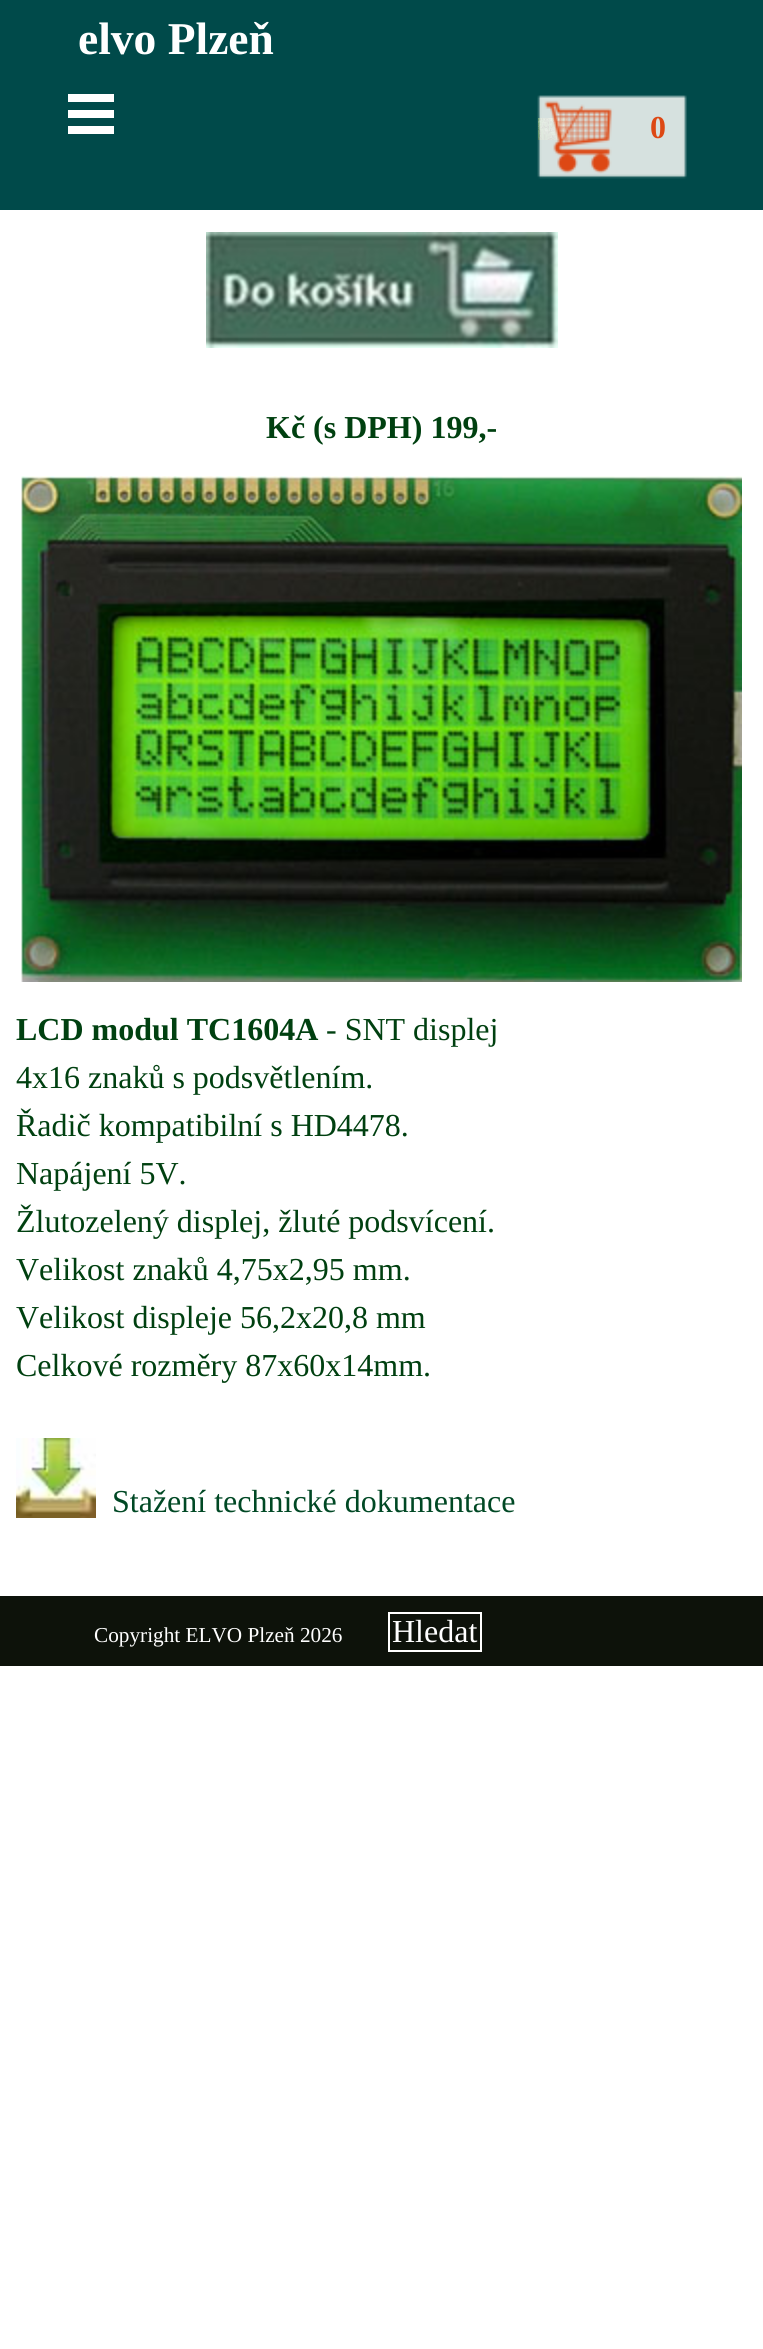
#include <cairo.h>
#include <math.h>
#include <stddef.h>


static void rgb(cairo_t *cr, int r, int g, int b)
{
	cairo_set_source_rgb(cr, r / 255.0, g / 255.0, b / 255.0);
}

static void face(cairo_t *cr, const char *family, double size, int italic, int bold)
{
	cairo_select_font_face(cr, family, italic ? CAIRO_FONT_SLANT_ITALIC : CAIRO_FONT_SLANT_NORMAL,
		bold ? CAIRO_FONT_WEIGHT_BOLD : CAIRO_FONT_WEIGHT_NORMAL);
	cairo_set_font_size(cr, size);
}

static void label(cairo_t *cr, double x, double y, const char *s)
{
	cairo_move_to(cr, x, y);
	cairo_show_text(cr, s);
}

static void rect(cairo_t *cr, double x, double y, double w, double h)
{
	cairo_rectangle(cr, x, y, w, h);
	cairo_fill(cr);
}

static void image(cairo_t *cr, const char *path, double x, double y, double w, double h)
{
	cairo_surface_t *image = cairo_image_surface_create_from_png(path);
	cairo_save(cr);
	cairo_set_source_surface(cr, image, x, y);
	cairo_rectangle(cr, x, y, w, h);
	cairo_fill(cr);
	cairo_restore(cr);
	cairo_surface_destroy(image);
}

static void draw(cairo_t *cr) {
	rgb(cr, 255, 255, 255);
	cairo_paint(cr);
	rgb(cr, 0, 74, 74);
	rect(cr, 0, 0, 763, 210);
	face(cr, "Liberation Serif", 45.5, 0, 1);
	rgb(cr, 255, 255, 255);
	label(cr, 78, 54, "elvo Plzeň");
	rect(cr, 68, 94, 46, 8);
	rect(cr, 68, 110, 46, 8);
	rect(cr, 68, 126, 46, 8);
	image(cr, "image1.png", 538, 118, 30, 22);
	image(cr, "image0.png", 537, 95, 150, 84);
	face(cr, "Liberation Serif", 32, 0, 1);
	rgb(cr, 221, 72, 20);
	label(cr, 650, 138, "0");
	image(cr, "image2.png", 206, 232, 352, 116);
	rgb(cr, 0, 64, 16);
	label(cr, 266, 438, "Kč (s DPH) 199,-");
	image(cr, "image3.png", 21, 476, 721, 506);
	label(cr, 16, 1040, "LCD modul TC1604A");
	face(cr, "Liberation Serif", 32, 0, 0);
	label(cr, 326, 1040, "- SNT displej");
	label(cr, 16, 1088, "4x16 znaků s podsvětlením.");
	label(cr, 16, 1136, "Řadič kompatibilní s HD4478.");
	label(cr, 16, 1184, "Napájení 5V.");
	label(cr, 16, 1232, "Žlutozelený displej, žluté podsvícení.");
	label(cr, 16, 1280, "Velikost znaků 4,75x2,95 mm.");
	label(cr, 16, 1328, "Velikost displeje 56,2x20,8 mm");
	label(cr, 16, 1376, "Celkové rozměry 87x60x14mm.");
	image(cr, "image4.png", 16, 1438, 80, 80);
	rgb(cr, 0, 72, 36);
	label(cr, 112, 1512, "Stažení technické dokumentace");
	rgb(cr, 13, 18, 10);
	rect(cr, 0, 1596, 763, 70);
	face(cr, "Liberation Serif", 21.25, 0, 0);
	rgb(cr, 255, 255, 255);
	label(cr, 94, 1642, "Copyright ELVO Plzeň 2026");
	cairo_rectangle(cr, 389, 1613, 92, 38);
	cairo_stroke(cr);
	face(cr, "Liberation Serif", 32, 0, 0);
	label(cr, 392, 1642, "Hledat");
}

int main(void) {
	cairo_surface_t *surface = cairo_image_surface_create(CAIRO_FORMAT_RGB24, 763, 2349);
	cairo_t *cr = cairo_create(surface);
	cairo_font_options_t *options = cairo_font_options_create();
	cairo_font_options_set_hint_metrics(options, CAIRO_HINT_METRICS_OFF);
	cairo_font_options_set_hint_style(options, CAIRO_HINT_STYLE_NONE);
	cairo_set_font_options(cr, options);
	cairo_set_miter_limit(cr, 4);
	draw(cr);
	cairo_surface_write_to_png(surface, "render.png");
	cairo_font_options_destroy(options);
	cairo_destroy(cr);
	cairo_surface_destroy(surface);
	return 0;
}
